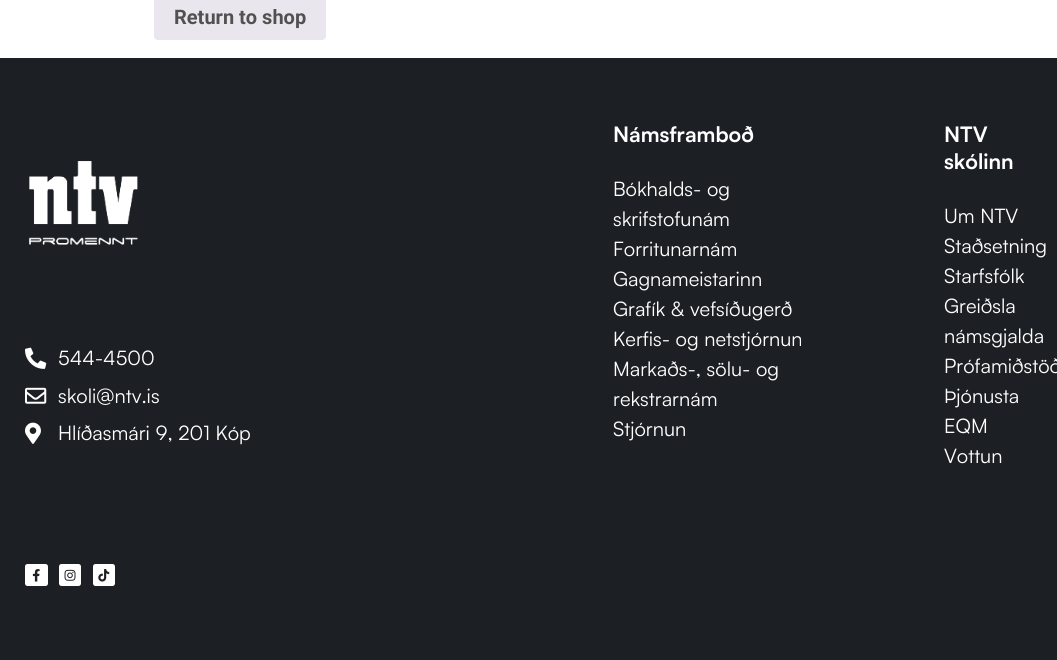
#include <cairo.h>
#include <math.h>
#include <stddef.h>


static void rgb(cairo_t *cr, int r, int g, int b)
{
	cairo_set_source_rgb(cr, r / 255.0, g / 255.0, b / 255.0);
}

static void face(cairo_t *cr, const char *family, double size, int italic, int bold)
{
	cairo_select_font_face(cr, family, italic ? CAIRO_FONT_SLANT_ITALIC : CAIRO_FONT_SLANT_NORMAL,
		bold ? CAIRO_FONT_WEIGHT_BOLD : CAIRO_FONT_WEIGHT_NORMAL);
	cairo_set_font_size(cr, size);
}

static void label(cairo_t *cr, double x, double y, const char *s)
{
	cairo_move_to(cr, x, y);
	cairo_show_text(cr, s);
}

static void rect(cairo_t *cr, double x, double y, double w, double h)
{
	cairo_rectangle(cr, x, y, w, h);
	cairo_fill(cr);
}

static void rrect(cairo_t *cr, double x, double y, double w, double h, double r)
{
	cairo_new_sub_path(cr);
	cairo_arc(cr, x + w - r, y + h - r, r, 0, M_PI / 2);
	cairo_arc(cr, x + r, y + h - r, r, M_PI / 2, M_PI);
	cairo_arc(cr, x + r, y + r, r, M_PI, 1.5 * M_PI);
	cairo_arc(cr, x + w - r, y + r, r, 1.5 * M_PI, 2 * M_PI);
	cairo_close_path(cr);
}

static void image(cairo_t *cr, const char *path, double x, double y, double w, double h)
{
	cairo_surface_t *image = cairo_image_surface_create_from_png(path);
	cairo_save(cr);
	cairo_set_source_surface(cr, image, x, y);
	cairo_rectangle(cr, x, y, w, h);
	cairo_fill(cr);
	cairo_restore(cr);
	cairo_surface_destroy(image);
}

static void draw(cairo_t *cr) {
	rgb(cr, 255, 255, 255);
	cairo_paint(cr);
	rgb(cr, 233, 230, 237);
	rrect(cr, 154, -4, 172, 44, 4);
	cairo_fill(cr);
	face(cr, "Roboto", 20, 0, 1);
	rgb(cr, 81, 81, 81);
	label(cr, 174, 24, "Return to shop");
	rgb(cr, 28, 31, 35);
	rect(cr, 0, 58, 1057, 602);
	image(cr, "image0.png", 28, 161, 110, 84);
	image(cr, "image1.png", 25, 347, 22, 22);
	face(cr, "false", 20, 0, 0);
	rgb(cr, 255, 255, 255);
	label(cr, 58, 365, "544-4500");
	image(cr, "image2.png", 25, 387, 22, 17);
	label(cr, 58, 403, "skoli@ntv.is");
	image(cr, "image3.png", 25, 422, 16, 22);
	label(cr, 58, 440, "Hlíðasmári 9, 201 Kóp");
	rrect(cr, 25, 564, 23, 22, 2.5);
	cairo_fill(cr);
	image(cr, "image4.png", 32, 569, 8, 13);
	rrect(cr, 59, 564, 22, 22, 2.5);
	cairo_fill(cr);
	image(cr, "image5.png", 64, 569, 12, 12);
	rrect(cr, 93, 564, 22, 22, 2.5);
	cairo_fill(cr);
	image(cr, "image6.png", 98, 569, 12, 13);
	face(cr, "false", 21.25, 0, 1);
	label(cr, 613, 142, "Námsframboð");
	face(cr, "false", 20, 0, 0);
	label(cr, 613, 196, "Bókhalds- og");
	label(cr, 613, 226, "skrifstofunám");
	label(cr, 613, 256, "Forritunarnám");
	label(cr, 613, 286, "Gagnameistarinn");
	label(cr, 613, 316, "Grafík & vefsíðugerð");
	label(cr, 613, 346, "Kerfis- og netstjórnun");
	label(cr, 613, 376, "Markaðs-, sölu- og");
	label(cr, 613, 406, "rekstrarnám");
	label(cr, 613, 436, "Stjórnun");
	face(cr, "false", 21.25, 0, 1);
	label(cr, 944, 142, "NTV");
	label(cr, 944, 169, "skólinn");
	face(cr, "false", 20, 0, 0);
	label(cr, 944, 223, "Um NTV");
	label(cr, 944, 253, "Staðsetning");
	label(cr, 944, 283, "Starfsfólk");
	label(cr, 944, 313, "Greiðsla");
	label(cr, 944, 343, "námsgjalda");
	label(cr, 944, 373, "Prófamiðstöð");
	label(cr, 944, 403, "Þjónusta");
	label(cr, 944, 433, "EQM");
	label(cr, 944, 463, "Vottun");
}

int main(void) {
	cairo_surface_t *surface = cairo_image_surface_create(CAIRO_FORMAT_RGB24, 1057, 660);
	cairo_t *cr = cairo_create(surface);
	cairo_font_options_t *options = cairo_font_options_create();
	cairo_font_options_set_hint_metrics(options, CAIRO_HINT_METRICS_OFF);
	cairo_font_options_set_hint_style(options, CAIRO_HINT_STYLE_NONE);
	cairo_set_font_options(cr, options);
	cairo_set_miter_limit(cr, 4);
	draw(cr);
	cairo_surface_write_to_png(surface, "render.png");
	cairo_font_options_destroy(options);
	cairo_destroy(cr);
	cairo_surface_destroy(surface);
	return 0;
}
